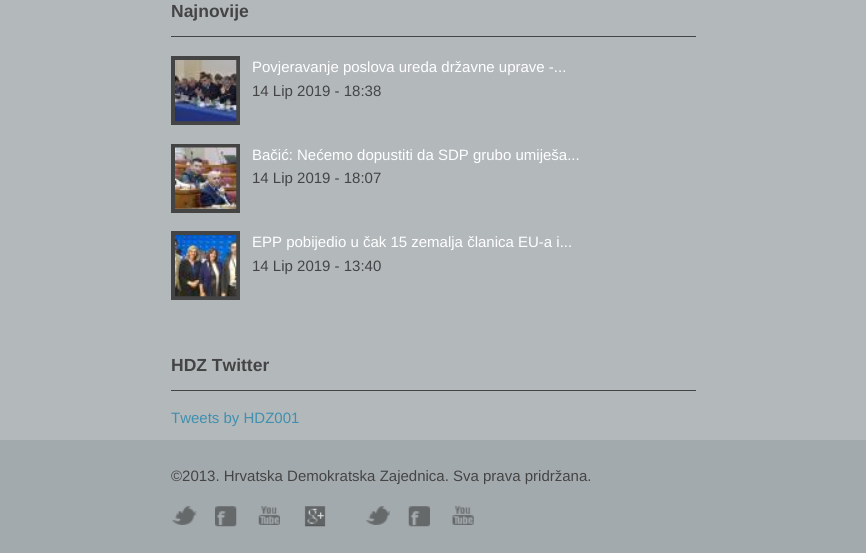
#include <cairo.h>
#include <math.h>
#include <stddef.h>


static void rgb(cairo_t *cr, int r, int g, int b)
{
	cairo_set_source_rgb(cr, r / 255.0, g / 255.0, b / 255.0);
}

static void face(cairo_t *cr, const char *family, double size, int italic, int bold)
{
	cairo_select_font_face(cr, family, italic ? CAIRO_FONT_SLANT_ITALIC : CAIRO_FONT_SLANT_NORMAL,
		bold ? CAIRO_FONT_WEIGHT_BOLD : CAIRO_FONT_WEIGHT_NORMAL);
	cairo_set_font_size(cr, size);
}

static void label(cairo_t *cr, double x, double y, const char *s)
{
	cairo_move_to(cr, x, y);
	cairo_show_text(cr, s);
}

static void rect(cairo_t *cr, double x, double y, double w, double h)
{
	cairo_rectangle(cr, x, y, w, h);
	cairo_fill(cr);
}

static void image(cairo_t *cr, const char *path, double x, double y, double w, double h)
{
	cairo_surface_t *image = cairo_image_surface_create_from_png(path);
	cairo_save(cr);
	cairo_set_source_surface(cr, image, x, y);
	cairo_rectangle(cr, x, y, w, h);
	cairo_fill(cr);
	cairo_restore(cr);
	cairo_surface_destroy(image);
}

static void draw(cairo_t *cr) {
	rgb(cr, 179, 184, 187);
	cairo_paint(cr);
	rgb(cr, 68, 68, 68);
	rect(cr, 171, 36, 525, 1);
	face(cr, "Liberation Sans", 17.5, 0, 1);
	label(cr, 171, 17, "Najnovije");
	cairo_rectangle(cr, 173, 58, 65, 65);
	cairo_set_line_width(cr, 4);
	cairo_stroke(cr);
	image(cr, "image0.png", 175, 60, 62, 62);
	face(cr, "Liberation Sans", 15, 0, 0);
	rgb(cr, 255, 255, 255);
	label(cr, 252, 72, "Povjeravanje poslova ureda državne uprave -...");
	rgb(cr, 68, 68, 68);
	label(cr, 252, 96, "14 Lip 2019 - 18:38");
	cairo_rectangle(cr, 173, 146, 65, 65);
	cairo_stroke(cr);
	image(cr, "image1.png", 175, 147, 62, 62);
	rgb(cr, 255, 255, 255);
	label(cr, 252, 160, "Bačić: Nećemo dopustiti da SDP grubo umiješa...");
	rgb(cr, 68, 68, 68);
	label(cr, 252, 183, "14 Lip 2019 - 18:07");
	cairo_rectangle(cr, 173, 233, 65, 65);
	cairo_stroke(cr);
	image(cr, "image2.png", 175, 235, 62, 62);
	rgb(cr, 255, 255, 255);
	label(cr, 252, 247, "EPP pobijedio u čak 15 zemalja članica EU-a i...");
	rgb(cr, 68, 68, 68);
	label(cr, 252, 271, "14 Lip 2019 - 13:40");
	rect(cr, 171, 390, 525, 1);
	face(cr, "Liberation Sans", 17.5, 0, 1);
	label(cr, 171, 371, "HDZ Twitter");
	face(cr, "Liberation Sans", 15, 0, 0);
	rgb(cr, 63, 143, 175);
	label(cr, 171, 423, "Tweets by HDZ001");
	rgb(cr, 163, 170, 173);
	rect(cr, 0, 440, 866, 113);
	rgb(cr, 68, 68, 68);
	label(cr, 171, 481, "©2013. Hrvatska Demokratska Zajednica. Sva prava pridržana.");
	image(cr, "image3.png", 172, 506, 25, 19);
	image(cr, "image4.png", 215, 506, 22, 21);
	image(cr, "image5.png", 258, 506, 22, 19);
	image(cr, "image6.png", 304, 506, 22, 21);
	image(cr, "image7.png", 366, 506, 24, 19);
	image(cr, "image8.png", 408, 506, 22, 21);
	image(cr, "image9.png", 452, 506, 22, 19);
}

int main(void) {
	cairo_surface_t *surface = cairo_image_surface_create(CAIRO_FORMAT_RGB24, 866, 553);
	cairo_t *cr = cairo_create(surface);
	cairo_font_options_t *options = cairo_font_options_create();
	cairo_font_options_set_hint_metrics(options, CAIRO_HINT_METRICS_OFF);
	cairo_font_options_set_hint_style(options, CAIRO_HINT_STYLE_NONE);
	cairo_set_font_options(cr, options);
	cairo_set_miter_limit(cr, 4);
	draw(cr);
	cairo_surface_write_to_png(surface, "render.png");
	cairo_font_options_destroy(options);
	cairo_destroy(cr);
	cairo_surface_destroy(surface);
	return 0;
}
